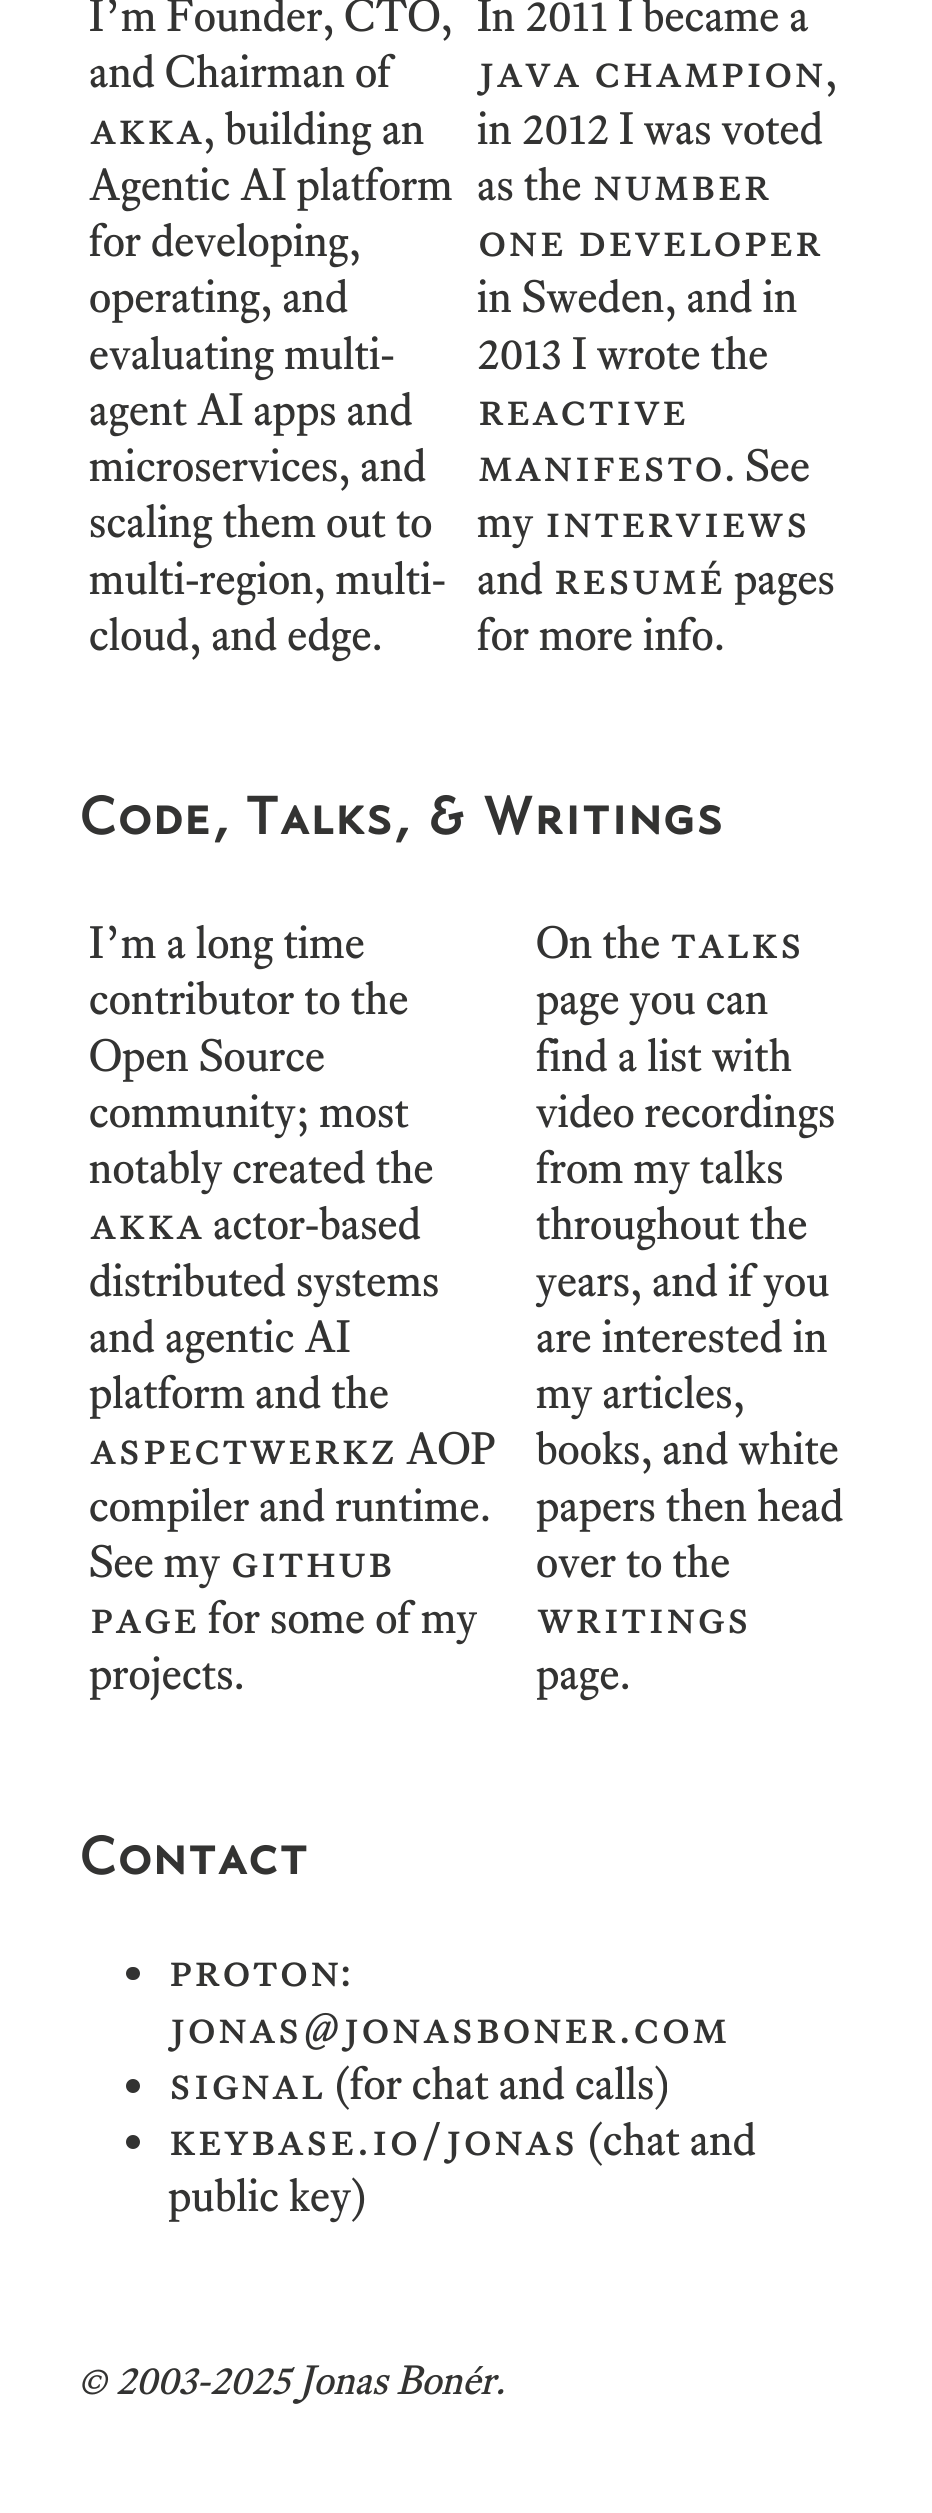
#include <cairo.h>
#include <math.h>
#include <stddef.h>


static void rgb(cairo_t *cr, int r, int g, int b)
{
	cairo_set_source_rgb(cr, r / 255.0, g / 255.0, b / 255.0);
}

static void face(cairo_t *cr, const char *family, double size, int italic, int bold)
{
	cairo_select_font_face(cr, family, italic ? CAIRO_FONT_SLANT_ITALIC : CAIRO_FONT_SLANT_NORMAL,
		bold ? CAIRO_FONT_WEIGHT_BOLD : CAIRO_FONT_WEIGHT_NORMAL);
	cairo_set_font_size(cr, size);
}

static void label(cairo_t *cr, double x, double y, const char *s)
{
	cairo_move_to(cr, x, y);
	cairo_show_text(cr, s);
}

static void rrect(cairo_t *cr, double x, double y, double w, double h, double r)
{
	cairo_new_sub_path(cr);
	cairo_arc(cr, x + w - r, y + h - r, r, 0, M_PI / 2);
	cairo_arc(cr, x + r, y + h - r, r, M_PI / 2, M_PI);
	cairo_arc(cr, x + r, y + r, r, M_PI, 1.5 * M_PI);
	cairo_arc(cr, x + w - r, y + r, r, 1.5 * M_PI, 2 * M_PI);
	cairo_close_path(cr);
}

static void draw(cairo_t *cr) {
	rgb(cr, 255, 255, 255);
	cairo_paint(cr);
	face(cr, "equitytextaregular", 45, 0, 0);
	rgb(cr, 51, 51, 50);
	label(cr, 89, 31, "I’m Founder, CTO,");
	label(cr, 89, 87, "and Chairman of");
	face(cr, "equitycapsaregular", 45, 0, 0);
	label(cr, 89, 144, "akka");
	face(cr, "equitytextaregular", 45, 0, 0);
	label(cr, 203, 144, ", building an");
	label(cr, 89, 200, "Agentic AI platform");
	label(cr, 89, 256, "for developing,");
	label(cr, 89, 312, "operating, and");
	label(cr, 89, 369, "evaluating multi-");
	label(cr, 89, 425, "agent AI apps and");
	label(cr, 89, 481, "microservices, and");
	label(cr, 89, 537, "scaling them out to");
	label(cr, 89, 594, "multi-region, multi-");
	label(cr, 89, 650, "cloud, and edge.");
	label(cr, 477, 31, "In 2011 I became a");
	face(cr, "equitycapsaregular", 45, 0, 0);
	label(cr, 477, 87, "java champion");
	face(cr, "equitytextaregular", 45, 0, 0);
	label(cr, 825, 87, ",");
	label(cr, 477, 144, "in 2012 I was voted");
	label(cr, 477, 200, "as the");
	face(cr, "equitycapsaregular", 45, 0, 0);
	label(cr, 592, 200, "number");
	label(cr, 477, 256, "one developer");
	face(cr, "equitytextaregular", 45, 0, 0);
	label(cr, 477, 312, "in Sweden, and in");
	label(cr, 477, 369, "2013 I wrote the");
	face(cr, "equitycapsaregular", 45, 0, 0);
	label(cr, 477, 425, "reactive");
	label(cr, 477, 481, "manifesto");
	face(cr, "equitytextaregular", 45, 0, 0);
	label(cr, 724, 481, ". See");
	label(cr, 477, 537, "my");
	face(cr, "equitycapsaregular", 45, 0, 0);
	label(cr, 544, 537, "interviews");
	face(cr, "equitytextaregular", 45, 0, 0);
	label(cr, 477, 594, "and");
	face(cr, "equitycapsaregular", 45, 0, 0);
	label(cr, 553, 594, "resumé");
	face(cr, "equitytextaregular", 45, 0, 0);
	label(cr, 734, 594, "pages");
	label(cr, 477, 650, "for more info.");
	face(cr, "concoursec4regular", 54, 0, 1);
	label(cr, 78, 834, "Code, Talks, & Writings");
	face(cr, "equitytextaregular", 45, 0, 0);
	label(cr, 89, 958, "I’m a long time");
	label(cr, 89, 1014, "contributor to the");
	label(cr, 89, 1071, "Open Source");
	label(cr, 89, 1127, "community; most");
	label(cr, 89, 1183, "notably created the");
	face(cr, "equitycapsaregular", 45, 0, 0);
	label(cr, 89, 1239, "akka");
	face(cr, "equitytextaregular", 45, 0, 0);
	label(cr, 213, 1239, "actor-based");
	label(cr, 89, 1296, "distributed systems");
	label(cr, 89, 1352, "and agentic AI");
	label(cr, 89, 1408, "platform and the");
	face(cr, "equitycapsaregular", 45, 0, 0);
	label(cr, 89, 1464, "aspectwerkz");
	face(cr, "equitytextaregular", 45, 0, 0);
	label(cr, 406, 1464, "AOP");
	label(cr, 89, 1521, "compiler and runtime.");
	label(cr, 89, 1577, "See my");
	face(cr, "equitycapsaregular", 45, 0, 0);
	label(cr, 230, 1577, "github");
	label(cr, 89, 1633, "page");
	face(cr, "equitytextaregular", 45, 0, 0);
	label(cr, 208, 1633, "for some of my");
	label(cr, 89, 1689, "projects.");
	label(cr, 536, 958, "On the");
	face(cr, "equitycapsaregular", 45, 0, 0);
	label(cr, 670, 958, "talks");
	face(cr, "equitytextaregular", 45, 0, 0);
	label(cr, 536, 1014, "page you can");
	label(cr, 536, 1071, "find a list with");
	label(cr, 536, 1127, "video recordings");
	label(cr, 536, 1183, "from my talks");
	label(cr, 536, 1239, "throughout the");
	label(cr, 536, 1296, "years, and if you");
	label(cr, 536, 1352, "are interested in");
	label(cr, 536, 1408, "my articles,");
	label(cr, 536, 1464, "books, and white");
	label(cr, 536, 1521, "papers then head");
	label(cr, 536, 1577, "over to the");
	face(cr, "equitycapsaregular", 45, 0, 0);
	label(cr, 536, 1633, "writings");
	face(cr, "equitytextaregular", 45, 0, 0);
	label(cr, 536, 1689, "page.");
	face(cr, "concoursec4regular", 54, 0, 1);
	label(cr, 78, 1874, "Contact");
	rrect(cr, 126, 1967, 14, 13, 6.5);
	cairo_fill(cr);
	face(cr, "equitycapsaregular", 45, 0, 0);
	label(cr, 168, 1986, "proton");
	face(cr, "equitytextaregular", 45, 0, 0);
	label(cr, 340, 1986, ":");
	face(cr, "equitycapsaregular", 45, 0, 0);
	label(cr, 168, 2043, "jonas@jonasboner.com");
	cairo_new_path(cr);
	cairo_arc(cr, 133, 2086, 7, 0, 2 * M_PI);
	cairo_fill(cr);
	label(cr, 168, 2099, "signal");
	face(cr, "equitytextaregular", 45, 0, 0);
	label(cr, 334, 2099, "(for chat and calls)");
	cairo_new_path(cr);
	cairo_arc(cr, 133, 2142, 7, 0, 2 * M_PI);
	cairo_fill(cr);
	face(cr, "equitycapsaregular", 45, 0, 0);
	label(cr, 168, 2155, "keybase.io/jonas");
	face(cr, "equitytextaregular", 45, 0, 0);
	label(cr, 587, 2155, "(chat and");
	label(cr, 168, 2211, "public key)");
	face(cr, "equitytextaregular", 40.5, 1, 0);
	label(cr, 78, 2394, "© 2003-2025 Jonas Bonér.");
}

int main(void) {
	cairo_surface_t *surface = cairo_image_surface_create(CAIRO_FORMAT_RGB24, 932, 2513);
	cairo_t *cr = cairo_create(surface);
	cairo_font_options_t *options = cairo_font_options_create();
	cairo_font_options_set_hint_metrics(options, CAIRO_HINT_METRICS_OFF);
	cairo_font_options_set_hint_style(options, CAIRO_HINT_STYLE_NONE);
	cairo_set_font_options(cr, options);
	cairo_set_miter_limit(cr, 4);
	draw(cr);
	cairo_surface_write_to_png(surface, "render.png");
	cairo_font_options_destroy(options);
	cairo_destroy(cr);
	cairo_surface_destroy(surface);
	return 0;
}
